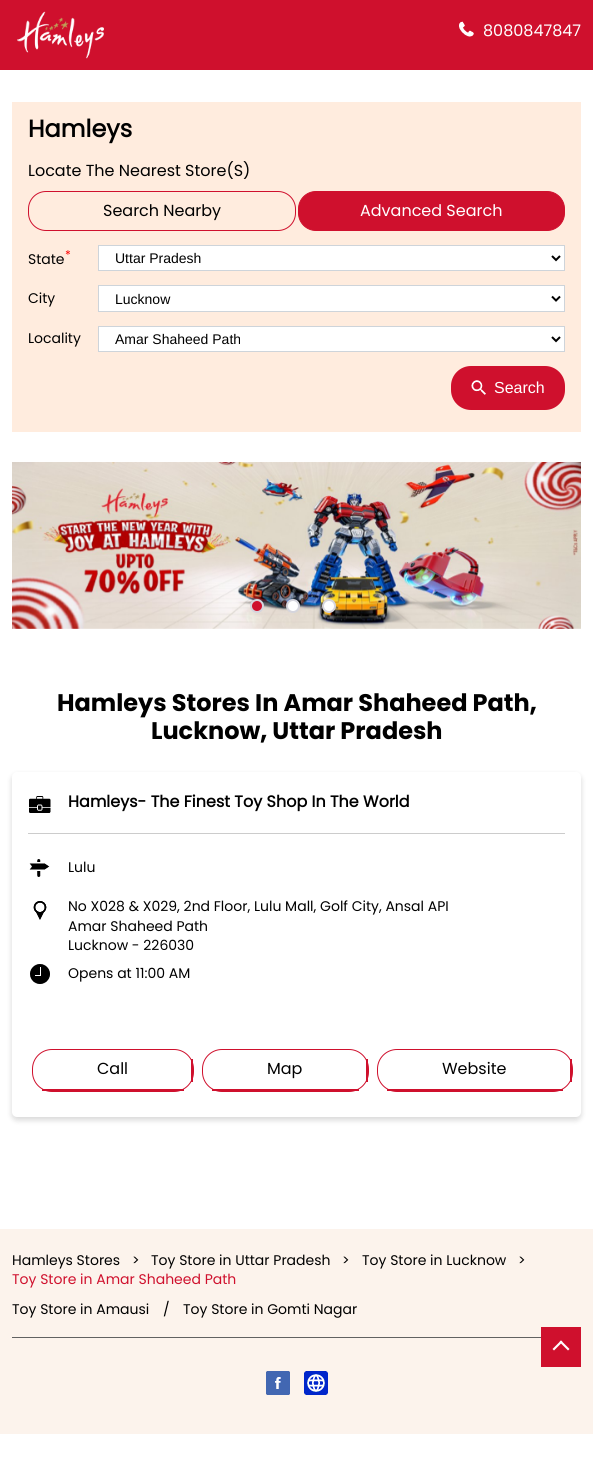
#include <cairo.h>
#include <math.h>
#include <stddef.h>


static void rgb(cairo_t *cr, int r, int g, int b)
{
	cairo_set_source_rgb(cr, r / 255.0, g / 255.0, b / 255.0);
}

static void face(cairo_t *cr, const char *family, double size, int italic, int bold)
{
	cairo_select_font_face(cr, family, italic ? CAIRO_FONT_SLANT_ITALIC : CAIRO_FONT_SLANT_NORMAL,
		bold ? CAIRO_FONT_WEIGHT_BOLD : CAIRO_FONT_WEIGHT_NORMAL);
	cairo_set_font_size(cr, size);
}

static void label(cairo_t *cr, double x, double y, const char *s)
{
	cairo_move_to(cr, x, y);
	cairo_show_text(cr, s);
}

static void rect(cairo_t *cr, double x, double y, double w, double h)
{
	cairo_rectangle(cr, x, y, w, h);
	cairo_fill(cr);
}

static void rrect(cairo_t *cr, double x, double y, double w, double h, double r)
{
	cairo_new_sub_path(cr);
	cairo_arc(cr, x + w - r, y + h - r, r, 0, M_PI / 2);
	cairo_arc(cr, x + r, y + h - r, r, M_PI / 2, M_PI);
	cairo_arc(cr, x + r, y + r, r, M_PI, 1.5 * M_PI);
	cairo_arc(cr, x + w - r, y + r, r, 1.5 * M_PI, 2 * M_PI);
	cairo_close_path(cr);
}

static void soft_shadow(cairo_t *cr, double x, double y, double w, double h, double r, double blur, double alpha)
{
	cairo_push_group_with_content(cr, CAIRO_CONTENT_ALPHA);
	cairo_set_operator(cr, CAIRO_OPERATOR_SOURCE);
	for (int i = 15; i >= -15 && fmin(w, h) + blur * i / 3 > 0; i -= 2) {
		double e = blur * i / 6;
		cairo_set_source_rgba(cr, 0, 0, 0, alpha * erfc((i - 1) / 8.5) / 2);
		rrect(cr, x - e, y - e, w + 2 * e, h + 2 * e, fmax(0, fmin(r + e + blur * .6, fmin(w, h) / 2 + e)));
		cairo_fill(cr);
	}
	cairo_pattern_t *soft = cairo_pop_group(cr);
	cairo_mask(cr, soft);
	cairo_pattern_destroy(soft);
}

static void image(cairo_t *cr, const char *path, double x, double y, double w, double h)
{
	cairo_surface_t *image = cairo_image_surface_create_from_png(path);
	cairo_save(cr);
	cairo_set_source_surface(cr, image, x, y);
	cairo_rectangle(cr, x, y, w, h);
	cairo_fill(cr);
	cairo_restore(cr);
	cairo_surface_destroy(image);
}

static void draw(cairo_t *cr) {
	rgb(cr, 255, 255, 255);
	cairo_paint(cr);
	rgb(cr, 207, 16, 45);
	rect(cr, 0, 0, 593, 70);
	image(cr, "image0.png", 17, 11, 87, 48);
	image(cr, "image1.png", 459, 21, 15, 16);
	face(cr, "Poppins", 16, 0, 0);
	rgb(cr, 255, 255, 255);
	label(cr, 483, 36, "8080847847");
	rgb(cr, 255, 236, 222);
	rect(cr, 12, 102, 569, 330);
	face(cr, "Poppins", 24, 0, 1);
	rgb(cr, 0, 0, 0);
	label(cr, 28, 137, "Hamleys");
	face(cr, "Poppins", 16, 0, 0);
	label(cr, 28, 176, "Locate The Nearest Store(S)");
	rrect(cr, 28.5, 191.5, 267, 39, 17.5);
	rgb(cr, 207, 16, 45);
	cairo_set_line_width(cr, 1);
	cairo_stroke(cr);
	rgb(cr, 0, 0, 0);
	label(cr, 103, 216, "Search Nearby");
	rgb(cr, 207, 16, 45);
	rrect(cr, 298.5, 191.5, 266, 39, 17.5);
	cairo_fill_preserve(cr);
	cairo_stroke(cr);
	rgb(cr, 255, 255, 255);
	label(cr, 360, 216, "Advanced Search");
	face(cr, "Poppins", 12, 0, 0);
	rgb(cr, 255, 0, 0);
	label(cr, 65, 259, "*");
	face(cr, "Poppins", 14, 0, 0);
	rgb(cr, 0, 0, 0);
	label(cr, 28, 264, "State");
	rgb(cr, 255, 255, 255);
	cairo_rectangle(cr, 98.5, 245.5, 466, 25);
	cairo_fill_preserve(cr);
	rgb(cr, 206, 212, 218);
	cairo_stroke(cr);
	cairo_new_path(cr);
	cairo_move_to(cr, 552, 256);
	cairo_line_to(cr, 556, 260);
	cairo_line_to(cr, 560, 256);
	rgb(cr, 0, 0, 0);
	cairo_set_line_width(cr, 2);
	cairo_stroke(cr);
	face(cr, "Liberation Sans", 14, 0, 0);
	label(cr, 115, 263, "Uttar Pradesh");
	face(cr, "Poppins", 14, 0, 0);
	label(cr, 28, 303, "City");
	rgb(cr, 255, 255, 255);
	cairo_rectangle(cr, 98.5, 285.5, 466, 26);
	cairo_fill_preserve(cr);
	rgb(cr, 206, 212, 218);
	cairo_set_line_width(cr, 1);
	cairo_stroke(cr);
	cairo_new_path(cr);
	cairo_move_to(cr, 552, 296.5);
	cairo_line_to(cr, 556, 300.5);
	cairo_line_to(cr, 560, 296.5);
	rgb(cr, 0, 0, 0);
	cairo_set_line_width(cr, 2);
	cairo_stroke(cr);
	face(cr, "Liberation Sans", 14, 0, 0);
	label(cr, 115, 304, "Lucknow");
	face(cr, "Poppins", 14, 0, 0);
	label(cr, 28, 343, "Locality");
	rgb(cr, 255, 255, 255);
	cairo_rectangle(cr, 98.5, 326.5, 466, 25);
	cairo_fill_preserve(cr);
	rgb(cr, 206, 212, 218);
	cairo_set_line_width(cr, 1);
	cairo_stroke(cr);
	cairo_new_path(cr);
	cairo_move_to(cr, 552, 337);
	cairo_line_to(cr, 556, 341);
	cairo_line_to(cr, 560, 337);
	rgb(cr, 0, 0, 0);
	cairo_set_line_width(cr, 2);
	cairo_stroke(cr);
	face(cr, "Liberation Sans", 14, 0, 0);
	label(cr, 115, 344, "Amar Shaheed Path");
	rgb(cr, 207, 16, 45);
	rrect(cr, 451, 366, 114, 44, 20);
	cairo_fill(cr);
	image(cr, "image2.png", 471, 380, 15, 15);
	face(cr, "Liberation Sans", 16, 0, 0);
	rgb(cr, 255, 255, 255);
	label(cr, 494, 393, "Search");
	image(cr, "image3.png", 12, 462, 569, 167);
	rgb(cr, 207, 16, 45);
	cairo_arc(cr, 257, 606, 6, 0, 2 * M_PI);
	cairo_fill_preserve(cr);
	rgb(cr, 213, 213, 221);
	cairo_stroke(cr);
	rgb(cr, 255, 255, 255);
	cairo_arc(cr, 293, 606, 6, 0, 2 * M_PI);
	cairo_fill_preserve(cr);
	rgb(cr, 213, 213, 221);
	cairo_stroke(cr);
	rgb(cr, 255, 255, 255);
	cairo_arc(cr, 329, 606, 6, 0, 2 * M_PI);
	cairo_fill_preserve(cr);
	rgb(cr, 213, 213, 221);
	cairo_stroke(cr);
	face(cr, "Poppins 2", 24, 0, 1);
	rgb(cr, 0, 0, 0);
	label(cr, 57, 711, "Hamleys Stores In Amar Shaheed Path,");
	label(cr, 151, 739, "Lucknow, Uttar Pradesh");
	rgb(cr, 0, 0, 0);
	soft_shadow(cr, 12, 775, 569, 345, 5, 3, 0.16);
	rgb(cr, 255, 255, 255);
	rrect(cr, 12, 772, 569, 345, 5);
	cairo_fill(cr);
	rgb(cr, 204, 204, 204);
	rect(cr, 28, 833, 537, 1);
	image(cr, "image4.png", 29, 796, 22, 17);
	face(cr, "Poppins", 16, 0, 1);
	rgb(cr, 0, 0, 0);
	label(cr, 68, 807, "Hamleys- The Finest Toy Shop In The World");
	image(cr, "image5.png", 29, 859, 21, 18);
	face(cr, "Poppins", 14, 0, 0);
	label(cr, 68, 872, "Lulu");
	image(cr, "image6.png", 33, 901, 14, 19);
	label(cr, 68, 911, "No X028 & X029, 2nd Floor, Lulu Mall, Golf City, Ansal API");
	label(cr, 68, 931, "Amar Shaheed Path");
	label(cr, 68, 950, "Lucknow - 226030");
	image(cr, "image7.png", 30, 964, 20, 20);
	label(cr, 68, 978, "Opens at 11:00 AM");
	rrect(cr, 32.5, 1049.5, 161, 42, 19.5);
	rgb(cr, 207, 16, 45);
	cairo_set_line_width(cr, 1);
	cairo_stroke(cr);
	rect(cr, 191, 1059, 2, 23);
	rect(cr, 42, 1089, 142, 2);
	face(cr, "Poppins", 16, 0, 0);
	rgb(cr, 0, 0, 0);
	label(cr, 97, 1074, "Call");
	rrect(cr, 202.5, 1049.5, 166, 42, 19.5);
	rgb(cr, 207, 16, 45);
	cairo_stroke(cr);
	rect(cr, 366, 1059, 2, 23);
	rect(cr, 212, 1089, 147, 2);
	rgb(cr, 0, 0, 0);
	label(cr, 267, 1074, "Map");
	rrect(cr, 377.5, 1049.5, 195, 42, 19.5);
	rgb(cr, 207, 16, 45);
	cairo_stroke(cr);
	rect(cr, 570, 1059, 2, 23);
	rect(cr, 387, 1089, 176, 2);
	rgb(cr, 0, 0, 0);
	label(cr, 442, 1074, "Website");
	rgb(cr, 252, 243, 236);
	rect(cr, 0, 1229, 593, 205);
	rgb(cr, 97, 97, 97);
	rect(cr, 12, 1337, 529, 1);
	face(cr, "Poppins", 14, 0, 0);
	rgb(cr, 0, 0, 0);
	label(cr, 12, 1265, "Hamleys Stores");
	label(cr, 132, 1265, ">");
	label(cr, 151, 1265, "Toy Store in Uttar Pradesh");
	label(cr, 342, 1265, ">");
	label(cr, 362, 1265, "Toy Store in Lucknow");
	label(cr, 518, 1265, ">");
	rgb(cr, 207, 16, 45);
	label(cr, 12, 1284, "Toy Store in Amar Shaheed Path");
	rgb(cr, 0, 0, 0);
	label(cr, 12, 1314, "Toy Store in Amausi");
	label(cr, 163, 1314, "/");
	label(cr, 183, 1314, "Toy Store in Gomti Nagar");
	image(cr, "image8.png", 266, 1371, 24, 24);
	image(cr, "image9.png", 304, 1371, 24, 24);
	rgb(cr, 207, 16, 45);
	rect(cr, 541, 1327, 40, 40);
	rgb(cr, 255, 255, 255);
	cairo_new_path(cr);
	cairo_move_to(cr, 554, 1350.5);
	cairo_line_to(cr, 552.5, 1349);
	cairo_line_to(cr, 561, 1340.5);
	cairo_line_to(cr, 562.5, 1342);
	cairo_close_path(cr);
	cairo_fill(cr);
	cairo_new_path(cr);
	cairo_move_to(cr, 568, 1350.5);
	cairo_line_to(cr, 559.5, 1342);
	cairo_line_to(cr, 561, 1340.5);
	cairo_line_to(cr, 569.5, 1349);
	cairo_close_path(cr);
	cairo_fill(cr);
}

int main(void) {
	cairo_surface_t *surface = cairo_image_surface_create(CAIRO_FORMAT_RGB24, 593, 1463);
	cairo_t *cr = cairo_create(surface);
	cairo_font_options_t *options = cairo_font_options_create();
	cairo_font_options_set_hint_metrics(options, CAIRO_HINT_METRICS_OFF);
	cairo_font_options_set_hint_style(options, CAIRO_HINT_STYLE_NONE);
	cairo_set_font_options(cr, options);
	cairo_set_miter_limit(cr, 4);
	draw(cr);
	cairo_surface_write_to_png(surface, "render.png");
	cairo_font_options_destroy(options);
	cairo_destroy(cr);
	cairo_surface_destroy(surface);
	return 0;
}
